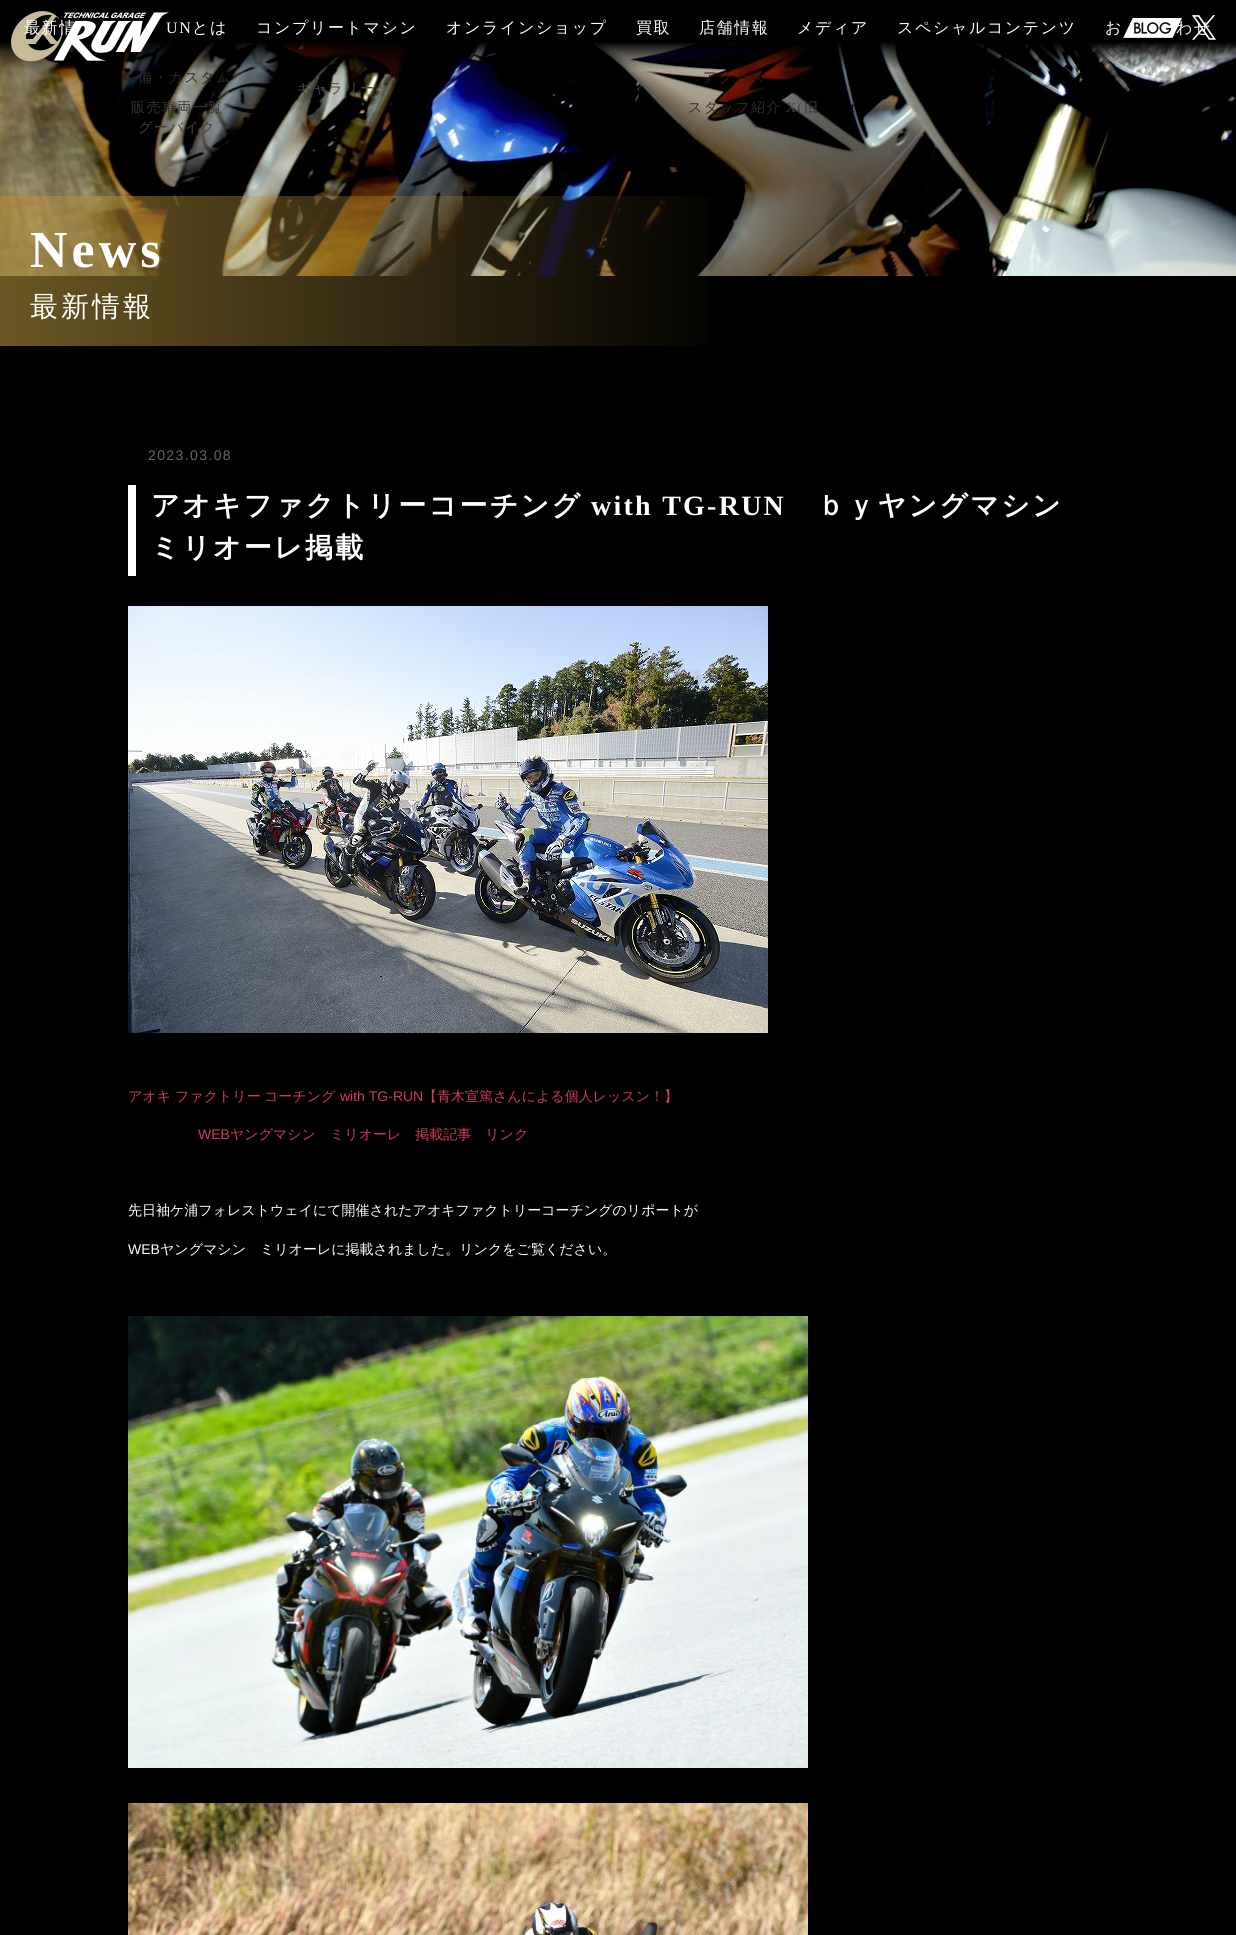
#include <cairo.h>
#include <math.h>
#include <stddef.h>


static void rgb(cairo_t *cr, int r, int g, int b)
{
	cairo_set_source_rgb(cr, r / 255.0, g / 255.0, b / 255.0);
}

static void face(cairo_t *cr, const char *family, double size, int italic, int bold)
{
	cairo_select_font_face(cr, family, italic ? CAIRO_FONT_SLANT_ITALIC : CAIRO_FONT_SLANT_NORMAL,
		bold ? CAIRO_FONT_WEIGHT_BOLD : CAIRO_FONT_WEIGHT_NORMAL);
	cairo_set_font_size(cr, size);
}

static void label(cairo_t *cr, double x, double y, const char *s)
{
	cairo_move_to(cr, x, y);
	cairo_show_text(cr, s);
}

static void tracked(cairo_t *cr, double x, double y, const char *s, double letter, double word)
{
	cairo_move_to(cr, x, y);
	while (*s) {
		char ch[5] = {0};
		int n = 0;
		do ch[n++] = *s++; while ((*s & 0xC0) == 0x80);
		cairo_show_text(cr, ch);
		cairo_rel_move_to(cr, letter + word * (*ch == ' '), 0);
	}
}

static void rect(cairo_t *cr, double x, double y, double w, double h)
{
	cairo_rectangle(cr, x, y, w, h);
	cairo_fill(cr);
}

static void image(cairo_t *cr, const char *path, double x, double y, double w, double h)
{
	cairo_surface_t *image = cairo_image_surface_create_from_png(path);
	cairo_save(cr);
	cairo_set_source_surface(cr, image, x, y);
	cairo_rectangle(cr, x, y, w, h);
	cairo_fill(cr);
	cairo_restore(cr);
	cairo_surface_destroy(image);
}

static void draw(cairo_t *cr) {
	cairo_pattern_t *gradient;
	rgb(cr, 0, 0, 0);
	cairo_paint(cr);
	image(cr, "image3.png", 0, 0, 1236, 276);
	image(cr, "image0.png", 11, 11, 158, 51);
	face(cr, "WenQuanYi Zen Hei Medium", 16, 0, 0);
	rgb(cr, 255, 255, 255);
	tracked(cr, 1176, 33, "わせ", 1.6, 0);
	image(cr, "image1.png", 1123, 18, 59, 20);
	image(cr, "image2.png", 1192, 15, 24, 25);
	tracked(cr, 24, 33, "最新情", 1.6, 0);
	face(cr, "Liberation Serif", 16, 0, 0);
	tracked(cr, 166, 33, "UN", 1.6, 0);
	face(cr, "WenQuanYi Zen Hei Medium", 16, 0, 0);
	tracked(cr, 192, 33, "とは", 1.6, 0);
	face(cr, "WenQuanYi Zen Hei Medium", 14, 0, 0);
	rgb(cr, 40, 40, 40);
	tracked(cr, 138, 82, "備・カスタム", 1.4, 0);
	rgb(cr, 53, 52, 48);
	tracked(cr, 131, 112, "販売車両一覧", 1.4, 0);
	rgb(cr, 65, 64, 60);
	tracked(cr, 138, 132, "グーバイク", 1.4, 0);
	face(cr, "WenQuanYi Zen Hei Medium", 16, 0, 0);
	rgb(cr, 255, 255, 255);
	tracked(cr, 256, 33, "コンプリートマシン", 1.6, 0);
	face(cr, "WenQuanYi Zen Hei Medium", 14, 0, 0);
	rgb(cr, 72, 73, 65);
	tracked(cr, 297, 93, "ギャラリー", 1.4, 0);
	face(cr, "WenQuanYi Zen Hei Medium", 16, 0, 0);
	rgb(cr, 255, 255, 255);
	tracked(cr, 446, 33, "オンラインショップ", 1.6, 0);
	tracked(cr, 636, 33, "買取", 1.6, 0);
	tracked(cr, 699, 33, "店舗情報", 1.6, 0);
	face(cr, "WenQuanYi Zen Hei Medium", 14, 0, 0);
	rgb(cr, 62, 29, 22);
	tracked(cr, 703, 82, "アクセス", 1.4, 0);
	rgb(cr, 47, 42, 36);
	tracked(cr, 688, 112, "スタッフ紹介", 1.4, 0);
	face(cr, "WenQuanYi Zen Hei Medium", 16, 0, 0);
	rgb(cr, 255, 255, 255);
	tracked(cr, 797, 33, "メディア", 1.6, 0);
	face(cr, "Liberation Serif", 14, 0, 0);
	rgb(cr, 65, 64, 60);
	tracked(cr, 786, 112, "X(", 1.4, 0);
	face(cr, "WenQuanYi Zen Hei Medium", 14, 0, 0);
	rgb(cr, 55, 56, 54);
	tracked(cr, 804, 112, "旧", 1.4, 0);
	face(cr, "Liberation Serif", 14, 0, 0);
	rgb(cr, 10, 11, 12);
	tracked(cr, 851, 112, "t", 1.4, 0);
	face(cr, "WenQuanYi Zen Hei Medium", 16, 0, 0);
	rgb(cr, 255, 255, 255);
	tracked(cr, 897, 33, "スペシャルコンテンツ", 1.6, 0);
	tracked(cr, 1105, 33, "お", 1.6, 0);
	gradient = cairo_pattern_create_linear(736, 271, -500, 271);
	cairo_pattern_add_color_stop_rgba(gradient, 0, 0.702, 0.569, 0.231, 0);
	cairo_pattern_add_color_stop_rgba(gradient, 1, 0.702, 0.569, 0.231, 1);
	cairo_set_source(cr, gradient);
	cairo_pattern_destroy(gradient);
	rect(cr, 0, 196, 709, 150);
	face(cr, "Liberation Serif", 52, 0, 1);
	rgb(cr, 255, 255, 255);
	tracked(cr, 30, 267, "News", 4, 0);
	face(cr, "WenQuanYi Zen Hei Medium", 28, 0, 0);
	tracked(cr, 30, 316, "最新情報", 3, 0);
	face(cr, "Liberation Sans", 14, 0, 0);
	rgb(cr, 102, 102, 102);
	tracked(cr, 148, 460, "2023.03.08", 1.4, 0);
	rgb(cr, 255, 255, 255);
	rect(cr, 128, 485, 8, 91);
	face(cr, "WenQuanYi Zen Hei", 28, 0, 1);
	tracked(cr, 151, 515, "アオキファクトリーコーチング", 2.25, 0);
	face(cr, "Liberation Serif", 28, 0, 1);
	tracked(cr, 591, 515, "with TG-RUN", 2.25, 0);
	face(cr, "WenQuanYi Zen Hei", 28, 0, 1);
	tracked(cr, 817, 515, "ｂｙヤングマシン", 2.25, 0);
	tracked(cr, 151, 557, "ミリオーレ掲載", 2.25, 0);
	image(cr, "image4.png", 128, 606, 640, 427);
	face(cr, "WenQuanYi Zen Hei Medium", 14, 0, 0);
	rgb(cr, 208, 60, 86);
	label(cr, 128, 1101, "アオキ");
	label(cr, 175, 1101, "ファクトリー");
	label(cr, 264, 1101, "コーチング");
	face(cr, "Liberation Sans", 14, 0, 0);
	label(cr, 340, 1101, "with TG-RUN");
	face(cr, "WenQuanYi Zen Hei Medium", 14, 0, 0);
	label(cr, 423, 1101, "【青木宣篤さんによる個人レッスン！】");
	face(cr, "Liberation Sans", 14, 0, 0);
	label(cr, 198, 1139, "WEB");
	face(cr, "WenQuanYi Zen Hei Medium", 14, 0, 0);
	label(cr, 230, 1139, "ヤングマシン　ミリオーレ　掲載記事　リンク");
	rgb(cr, 255, 255, 255);
	label(cr, 128, 1215, "先日袖ケ浦フォレストウェイにて開催されたアオキファクトリーコーチングのリポートが");
	face(cr, "Liberation Sans", 14, 0, 0);
	label(cr, 128, 1254, "WEB");
	face(cr, "WenQuanYi Zen Hei Medium", 14, 0, 0);
	label(cr, 160, 1254, "ヤングマシン　ミリオーレに掲載されました。リンクをご覧ください。");
	image(cr, "image5.png", 128, 1316, 680, 452);
	image(cr, "image6.png", 128, 1803, 680, 132);
}

int main(void) {
	cairo_surface_t *surface = cairo_image_surface_create(CAIRO_FORMAT_RGB24, 1236, 1935);
	cairo_t *cr = cairo_create(surface);
	cairo_font_options_t *options = cairo_font_options_create();
	cairo_font_options_set_hint_metrics(options, CAIRO_HINT_METRICS_OFF);
	cairo_font_options_set_hint_style(options, CAIRO_HINT_STYLE_NONE);
	cairo_set_font_options(cr, options);
	cairo_set_miter_limit(cr, 4);
	draw(cr);
	cairo_surface_write_to_png(surface, "render.png");
	cairo_font_options_destroy(options);
	cairo_destroy(cr);
	cairo_surface_destroy(surface);
	return 0;
}
